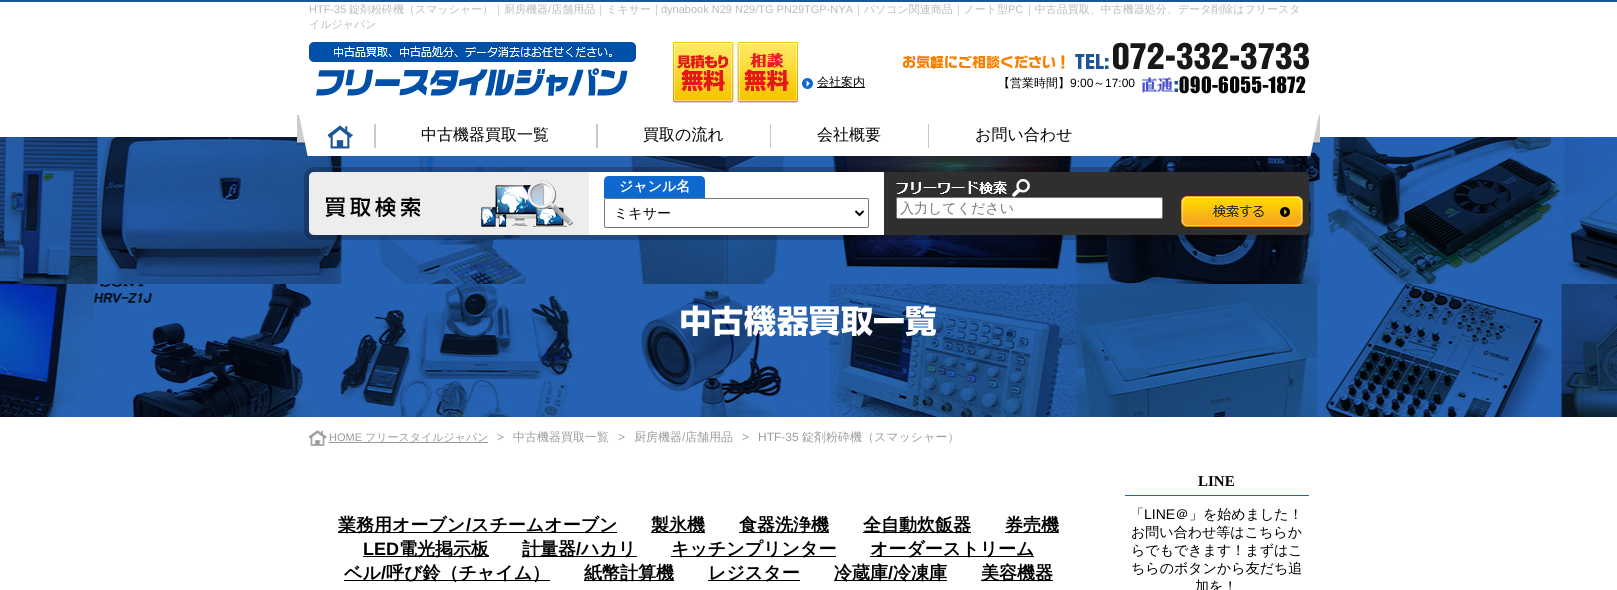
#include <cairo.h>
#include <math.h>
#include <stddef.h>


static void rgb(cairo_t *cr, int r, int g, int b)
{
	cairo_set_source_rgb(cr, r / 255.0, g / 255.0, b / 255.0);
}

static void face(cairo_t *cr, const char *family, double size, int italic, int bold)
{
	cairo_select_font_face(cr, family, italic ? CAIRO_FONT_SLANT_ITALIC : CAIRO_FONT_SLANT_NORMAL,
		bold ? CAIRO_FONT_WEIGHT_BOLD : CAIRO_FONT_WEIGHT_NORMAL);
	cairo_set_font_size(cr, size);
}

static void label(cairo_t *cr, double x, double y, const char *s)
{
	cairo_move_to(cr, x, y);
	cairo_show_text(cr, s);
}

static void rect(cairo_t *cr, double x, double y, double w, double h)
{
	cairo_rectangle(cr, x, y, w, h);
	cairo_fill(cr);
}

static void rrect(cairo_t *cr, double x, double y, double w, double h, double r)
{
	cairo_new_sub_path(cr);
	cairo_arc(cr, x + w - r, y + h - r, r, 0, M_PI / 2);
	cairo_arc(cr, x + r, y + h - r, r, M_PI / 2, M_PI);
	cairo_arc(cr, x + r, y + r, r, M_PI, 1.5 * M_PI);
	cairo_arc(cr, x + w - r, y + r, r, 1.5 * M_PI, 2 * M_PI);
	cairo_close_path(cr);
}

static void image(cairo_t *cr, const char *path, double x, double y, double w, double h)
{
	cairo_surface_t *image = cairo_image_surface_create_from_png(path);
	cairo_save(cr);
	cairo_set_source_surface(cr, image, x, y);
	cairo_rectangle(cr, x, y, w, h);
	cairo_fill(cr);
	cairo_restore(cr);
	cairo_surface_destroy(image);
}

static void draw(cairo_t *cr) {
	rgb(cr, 255, 255, 255);
	cairo_paint(cr);
	rgb(cr, 29, 86, 151);
	rect(cr, 0, 0, 1617, 2);
	face(cr, "Liberation Sans", 11, 0, 0);
	rgb(cr, 187, 187, 187);
	label(cr, 309, 13, "HTF-35");
	face(cr, "WenQuanYi Zen Hei Medium", 11, 0, 0);
	label(cr, 349, 13, "錠剤粉砕機（スマッシャー）｜厨房機器 店舗用品｜ミキサー｜");
	label(cr, 853, 13, "｜パソコン関連商品｜ノート型");
	label(cr, 1024, 13, "｜中古品買取、中古機器処分、データ削除はフリースタ");
	face(cr, "Liberation Sans", 11, 0, 0);
	label(cr, 548, 13, "/");
	label(cr, 661, 13, "dynabook N29 N29/TG PN29TGP-NYA");
	label(cr, 1008, 13, "PC");
	face(cr, "WenQuanYi Zen Hei Medium", 11, 0, 0);
	label(cr, 309, 28, "イルジャパン");
	image(cr, "image0.png", 309, 42, 327, 54);
	image(cr, "image1.png", 673, 42, 61, 61);
	image(cr, "image2.png", 737, 42, 61, 61);
	image(cr, "image3.png", 802, 78, 11, 11);
	rgb(cr, 0, 0, 0);
	rect(cr, 817, 87, 48, 1);
	face(cr, "WenQuanYi Zen Hei Medium", 12, 0, 0);
	label(cr, 817, 86, "会社案内");
	image(cr, "image4.png", 902, 42, 407, 28);
	label(cr, 998, 87, "【営業時間】");
	face(cr, "Liberation Sans", 12, 0, 0);
	label(cr, 1070, 87, "9:00");
	face(cr, "WenQuanYi Zen Hei Medium", 12, 0, 0);
	label(cr, 1093, 87, "～");
	face(cr, "Liberation Sans", 12, 0, 0);
	label(cr, 1105, 87, "17:00");
	image(cr, "image5.png", 1142, 76, 164, 18);
	image(cr, "image8.png", 0, 137, 1617, 280);
	image(cr, "image6.png", 297, 115, 1023, 41);
	image(cr, "image7.png", 328, 125, 25, 24);
	rgb(cr, 201, 201, 201);
	rect(cr, 374, 124, 2, 24);
	face(cr, "WenQuanYi Zen Hei Medium", 16, 0, 0);
	rgb(cr, 0, 0, 0);
	label(cr, 421, 140, "中古機器買取一覧");
	rgb(cr, 201, 201, 201);
	rect(cr, 596, 124, 2, 24);
	rgb(cr, 0, 0, 0);
	label(cr, 643, 140, "買取の流れ");
	rgb(cr, 201, 201, 201);
	rect(cr, 770, 124, 1, 24);
	rgb(cr, 0, 0, 0);
	label(cr, 817, 140, "会社概要");
	rgb(cr, 201, 201, 201);
	rect(cr, 928, 124, 1, 24);
	rgb(cr, 0, 0, 0);
	label(cr, 975, 140, "お問い合わせ");
	rrect(cr, 306.5, 169.5, 1005, 68, 7.5);
	cairo_set_source_rgba(cr, 0.035, 0.008, 0.016, 0.24);
	cairo_set_line_width(cr, 5);
	cairo_stroke(cr);
	rgb(cr, 237, 237, 237);
	cairo_new_path(cr);
	cairo_move_to(cr, 314, 172);
	cairo_line_to(cr, 589, 172);
	cairo_line_to(cr, 589, 235);
	cairo_line_to(cr, 314, 235);
	cairo_curve_to(cr, 311, 235, 309, 233, 309, 230);
	cairo_line_to(cr, 309, 177);
	cairo_curve_to(cr, 309, 174, 311, 172, 314, 172);
	cairo_close_path(cr);
	cairo_fill(cr);
	image(cr, "image9.png", 325, 180, 248, 47);
	rgb(cr, 255, 255, 255);
	rect(cr, 589, 172, 295, 63);
	rgb(cr, 14, 104, 205);
	cairo_new_path(cr);
	cairo_move_to(cr, 609, 176);
	cairo_line_to(cr, 700, 176);
	cairo_curve_to(cr, 703, 176, 705, 178, 705, 181);
	cairo_line_to(cr, 705, 198);
	cairo_line_to(cr, 604, 198);
	cairo_line_to(cr, 604, 181);
	cairo_curve_to(cr, 604, 178, 606, 176, 609, 176);
	cairo_close_path(cr);
	cairo_fill(cr);
	face(cr, "WenQuanYi Zen Hei", 14, 0, 1);
	rgb(cr, 255, 255, 255);
	label(cr, 619, 191, "ジャンル名");
	rrect(cr, 604.5, 198.5, 264, 29, 1.5);
	rgb(cr, 118, 118, 118);
	cairo_set_line_width(cr, 1);
	cairo_stroke(cr);
	cairo_new_path(cr);
	cairo_move_to(cr, 855.5, 211);
	cairo_line_to(cr, 859.5, 215);
	cairo_line_to(cr, 863.5, 211);
	rgb(cr, 0, 0, 0);
	cairo_set_line_width(cr, 2);
	cairo_stroke(cr);
	face(cr, "WenQuanYi Zen Hei Medium", 14, 0, 0);
	label(cr, 614, 218, "ミキサー");
	rgb(cr, 47, 47, 47);
	cairo_new_path(cr);
	cairo_move_to(cr, 884, 172);
	cairo_line_to(cr, 1304, 172);
	cairo_curve_to(cr, 1307, 172, 1309, 174, 1309, 177);
	cairo_line_to(cr, 1309, 230);
	cairo_curve_to(cr, 1309, 233, 1307, 235, 1304, 235);
	cairo_line_to(cr, 884, 235);
	cairo_close_path(cr);
	cairo_fill(cr);
	image(cr, "image10.png", 896, 179, 134, 18);
	rgb(cr, 255, 255, 255);
	rrect(cr, 896.5, 197.5, 266, 21, 1.5);
	cairo_fill_preserve(cr);
	rgb(cr, 118, 118, 118);
	cairo_set_line_width(cr, 1);
	cairo_stroke(cr);
	rgb(cr, 117, 117, 117);
	label(cr, 900, 213, "入力してください");
	image(cr, "image11.png", 1181, 196, 122, 32);
	image(cr, "image12.png", 681, 305, 256, 32);
	image(cr, "image13.png", 309, 430, 18, 16);
	face(cr, "Liberation Sans", 11, 0, 0);
	rgb(cr, 155, 155, 154);
	label(cr, 329, 441, "HOME");
	rect(cr, 329, 442, 159, 1);
	face(cr, "WenQuanYi Zen Hei Medium", 11, 0, 0);
	label(cr, 365, 441, "フリースタイルジャパン");
	face(cr, "Liberation Sans", 12, 0, 0);
	label(cr, 497, 441, ">");
	face(cr, "WenQuanYi Zen Hei Medium", 12, 0, 0);
	label(cr, 513, 441, "中古機器買取一覧");
	face(cr, "Liberation Sans", 12, 0, 0);
	label(cr, 618, 441, ">");
	face(cr, "WenQuanYi Zen Hei Medium", 12, 0, 0);
	label(cr, 634, 441, "厨房機器");
	face(cr, "Liberation Sans", 12, 0, 0);
	label(cr, 682, 441, "/");
	face(cr, "WenQuanYi Zen Hei Medium", 12, 0, 0);
	label(cr, 685, 441, "店舗用品");
	face(cr, "Liberation Sans", 12, 0, 0);
	label(cr, 742, 441, ">");
	label(cr, 758, 441, "HTF-35");
	face(cr, "WenQuanYi Zen Hei Medium", 12, 0, 0);
	label(cr, 802, 441, "錠剤粉砕機（スマッシャー）");
	rgb(cr, 0, 0, 0);
	rect(cr, 338, 532, 279, 1);
	face(cr, "WenQuanYi Zen Hei", 18, 0, 1);
	label(cr, 338, 531, "業務用オーブン");
	face(cr, "Liberation Sans", 18, 0, 1);
	label(cr, 466, 531, "/");
	face(cr, "WenQuanYi Zen Hei", 18, 0, 1);
	label(cr, 471, 531, "スチームオーブン");
	rect(cr, 651, 532, 54, 1);
	label(cr, 651, 531, "製氷機");
	rect(cr, 739, 532, 90, 1);
	label(cr, 739, 531, "食器洗浄機");
	rect(cr, 863, 532, 108, 1);
	label(cr, 863, 531, "全自動炊飯器");
	rect(cr, 1005, 532, 54, 1);
	label(cr, 1005, 531, "券売機");
	face(cr, "Liberation Sans", 18, 0, 1);
	label(cr, 363, 555, "LED");
	rect(cr, 363, 556, 126, 1);
	face(cr, "WenQuanYi Zen Hei", 18, 0, 1);
	label(cr, 399, 555, "電光掲示板");
	rect(cr, 522, 556, 115, 1);
	label(cr, 522, 555, "計量器");
	face(cr, "Liberation Sans", 18, 0, 1);
	label(cr, 576, 555, "/");
	face(cr, "WenQuanYi Zen Hei", 18, 0, 1);
	label(cr, 581, 555, "ハカリ");
	rect(cr, 671, 556, 165, 1);
	label(cr, 671, 555, "キッチンプリンター");
	rect(cr, 870, 556, 164, 1);
	label(cr, 870, 555, "オーダーストリーム");
	rect(cr, 344, 580, 206, 1);
	label(cr, 344, 579, "ベル");
	face(cr, "Liberation Sans", 18, 0, 1);
	label(cr, 381, 579, "/");
	face(cr, "WenQuanYi Zen Hei", 18, 0, 1);
	label(cr, 386, 579, "呼び鈴（チャイム）");
	rect(cr, 584, 580, 90, 1);
	label(cr, 584, 579, "紙幣計算機");
	rect(cr, 708, 580, 92, 1);
	label(cr, 708, 579, "レジスター");
	rect(cr, 834, 580, 113, 1);
	label(cr, 834, 579, "冷蔵庫");
	face(cr, "Liberation Sans", 18, 0, 1);
	label(cr, 888, 579, "/");
	face(cr, "WenQuanYi Zen Hei", 18, 0, 1);
	label(cr, 893, 579, "冷凍庫");
	rect(cr, 981, 580, 72, 1);
	label(cr, 981, 579, "美容機器");
	rgb(cr, 14, 104, 205);
	rect(cr, 1125, 495, 184, 1);
	face(cr, "Liberation Serif", 15, 0, 1);
	rgb(cr, 0, 0, 0);
	label(cr, 1198, 486, "LINE");
	face(cr, "WenQuanYi Zen Hei Medium", 14, 0, 0);
	label(cr, 1130, 519, "「");
	face(cr, "Liberation Sans", 14, 0, 0);
	label(cr, 1144, 519, "LINE");
	face(cr, "WenQuanYi Zen Hei Medium", 14, 0, 0);
	label(cr, 1175, 519, "＠」を始めました！");
	label(cr, 1131, 537, "お問い合わせ等はこちらか");
	label(cr, 1131, 555, "らでもできます！まずはこ");
	label(cr, 1131, 573, "ちらのボタンから友だち追");
	label(cr, 1195, 591, "加を！");
}

int main(void) {
	cairo_surface_t *surface = cairo_image_surface_create(CAIRO_FORMAT_RGB24, 1617, 590);
	cairo_t *cr = cairo_create(surface);
	cairo_font_options_t *options = cairo_font_options_create();
	cairo_font_options_set_hint_metrics(options, CAIRO_HINT_METRICS_OFF);
	cairo_font_options_set_hint_style(options, CAIRO_HINT_STYLE_NONE);
	cairo_set_font_options(cr, options);
	cairo_set_miter_limit(cr, 4);
	draw(cr);
	cairo_surface_write_to_png(surface, "render.png");
	cairo_font_options_destroy(options);
	cairo_destroy(cr);
	cairo_surface_destroy(surface);
	return 0;
}
